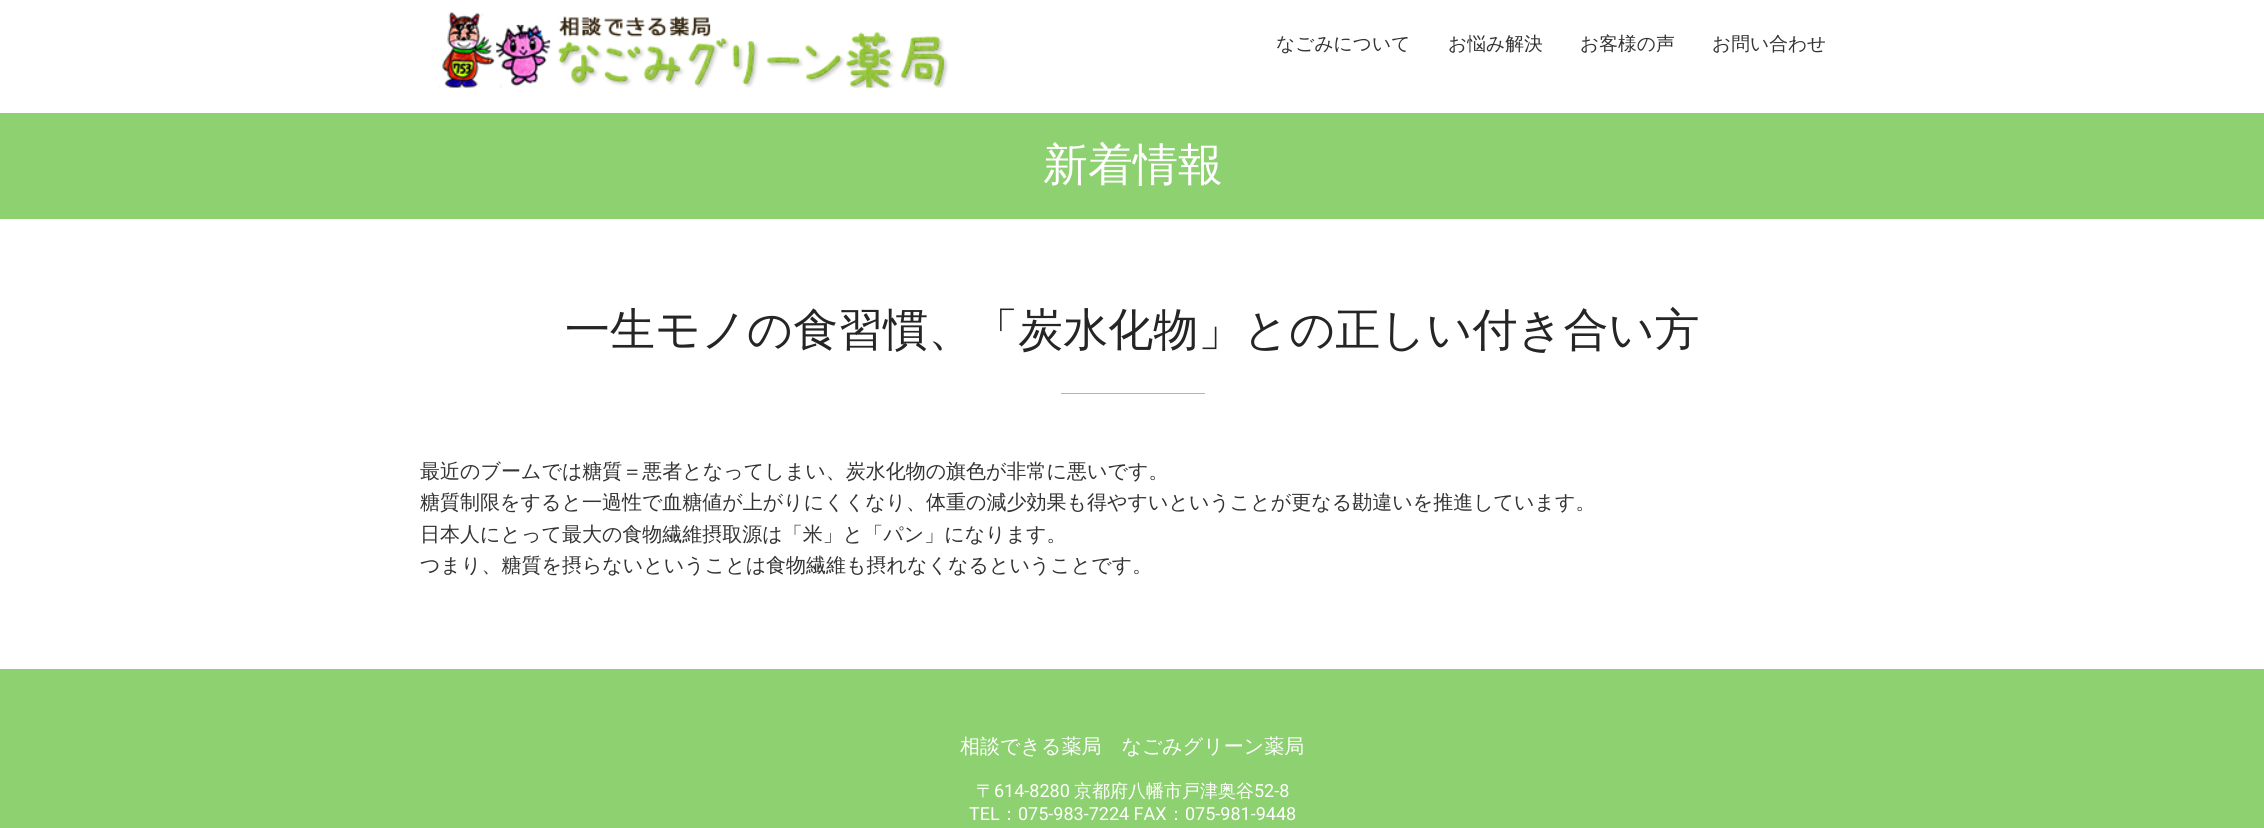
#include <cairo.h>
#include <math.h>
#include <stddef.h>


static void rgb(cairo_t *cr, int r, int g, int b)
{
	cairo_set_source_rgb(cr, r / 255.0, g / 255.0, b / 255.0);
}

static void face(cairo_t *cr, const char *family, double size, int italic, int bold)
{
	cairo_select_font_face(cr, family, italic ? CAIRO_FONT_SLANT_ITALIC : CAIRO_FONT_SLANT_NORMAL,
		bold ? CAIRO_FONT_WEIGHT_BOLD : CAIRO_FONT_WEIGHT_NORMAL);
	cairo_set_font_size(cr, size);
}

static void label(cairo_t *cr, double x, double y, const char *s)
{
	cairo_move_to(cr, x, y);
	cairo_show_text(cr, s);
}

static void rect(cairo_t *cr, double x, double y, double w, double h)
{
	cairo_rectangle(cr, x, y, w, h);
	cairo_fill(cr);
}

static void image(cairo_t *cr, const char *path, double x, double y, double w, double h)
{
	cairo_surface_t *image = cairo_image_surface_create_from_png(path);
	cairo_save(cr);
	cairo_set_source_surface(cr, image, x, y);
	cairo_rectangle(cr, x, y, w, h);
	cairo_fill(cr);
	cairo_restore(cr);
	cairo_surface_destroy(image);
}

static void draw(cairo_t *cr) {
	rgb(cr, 255, 255, 255);
	cairo_paint(cr);
	image(cr, "image0.png", 439, 12, 510, 76);
	face(cr, "WenQuanYi Zen Hei Medium", 18.75, 0, 0);
	rgb(cr, 51, 51, 51);
	label(cr, 1276, 50, "なごみについて");
	label(cr, 1448, 50, "お悩み解決");
	label(cr, 1580, 50, "お客様の声");
	label(cr, 1712, 50, "お問い合わせ");
	rgb(cr, 142, 209, 113);
	rect(cr, 0, 113, 2264, 106);
	face(cr, "WenQuanYi Zen Hei Medium", 45, 0, 0);
	rgb(cr, 255, 255, 255);
	label(cr, 1043, 180, "新着情報");
	rgb(cr, 37, 37, 37);
	label(cr, 565, 345, "一生モノの食習慣、「炭水化物」との正しい付き合い方");
	rgb(cr, 142, 209, 113);
	rect(cr, 1061, 393, 144, 1);
	face(cr, "WenQuanYi Zen Hei Medium", 20, 0, 0);
	rgb(cr, 51, 51, 51);
	label(cr, 420, 478, "最近のブームでは糖質＝悪者となってしまい、炭水化物の旗色が非常に悪いです。");
	label(cr, 420, 509, "糖質制限をすると一過性で血糖値が上がりにくくなり、体重の減少効果も得やすいということが更なる勘違いを推進しています。");
	label(cr, 420, 541, "日本人にとって最大の食物繊維摂取源は「米」と「パン」になります。");
	label(cr, 420, 572, "つまり、糖質を摂らないということは食物繊維も摂れなくなるということです。");
	rgb(cr, 142, 209, 113);
	rect(cr, 0, 669, 2264, 159);
	rgb(cr, 255, 255, 255);
	label(cr, 960, 753, "相談できる薬局　なごみグリーン薬局");
	face(cr, "WenQuanYi Zen Hei Medium", 18, 0, 0);
	label(cr, 976, 797, "〒");
	face(cr, "Roboto", 18, 0, 0);
	label(cr, 994, 797, "614-8280");
	face(cr, "WenQuanYi Zen Hei Medium", 18, 0, 0);
	label(cr, 1074, 797, "京都府八幡市戸津奥谷");
	face(cr, "Roboto", 18, 0, 0);
	label(cr, 1254, 797, "52-8");
	label(cr, 969, 820, "TEL");
	face(cr, "WenQuanYi Zen Hei Medium", 18, 0, 0);
	label(cr, 1000, 820, "：");
	face(cr, "Roboto", 18, 0, 0);
	label(cr, 1018, 820, "075-983-7224 FAX");
	face(cr, "WenQuanYi Zen Hei Medium", 18, 0, 0);
	label(cr, 1167, 820, "：");
	face(cr, "Roboto", 18, 0, 0);
	label(cr, 1185, 820, "075-981-9448");
}

int main(void) {
	cairo_surface_t *surface = cairo_image_surface_create(CAIRO_FORMAT_RGB24, 2264, 828);
	cairo_t *cr = cairo_create(surface);
	cairo_font_options_t *options = cairo_font_options_create();
	cairo_font_options_set_hint_metrics(options, CAIRO_HINT_METRICS_OFF);
	cairo_font_options_set_hint_style(options, CAIRO_HINT_STYLE_NONE);
	cairo_set_font_options(cr, options);
	cairo_set_miter_limit(cr, 4);
	draw(cr);
	cairo_surface_write_to_png(surface, "render.png");
	cairo_font_options_destroy(options);
	cairo_destroy(cr);
	cairo_surface_destroy(surface);
	return 0;
}
